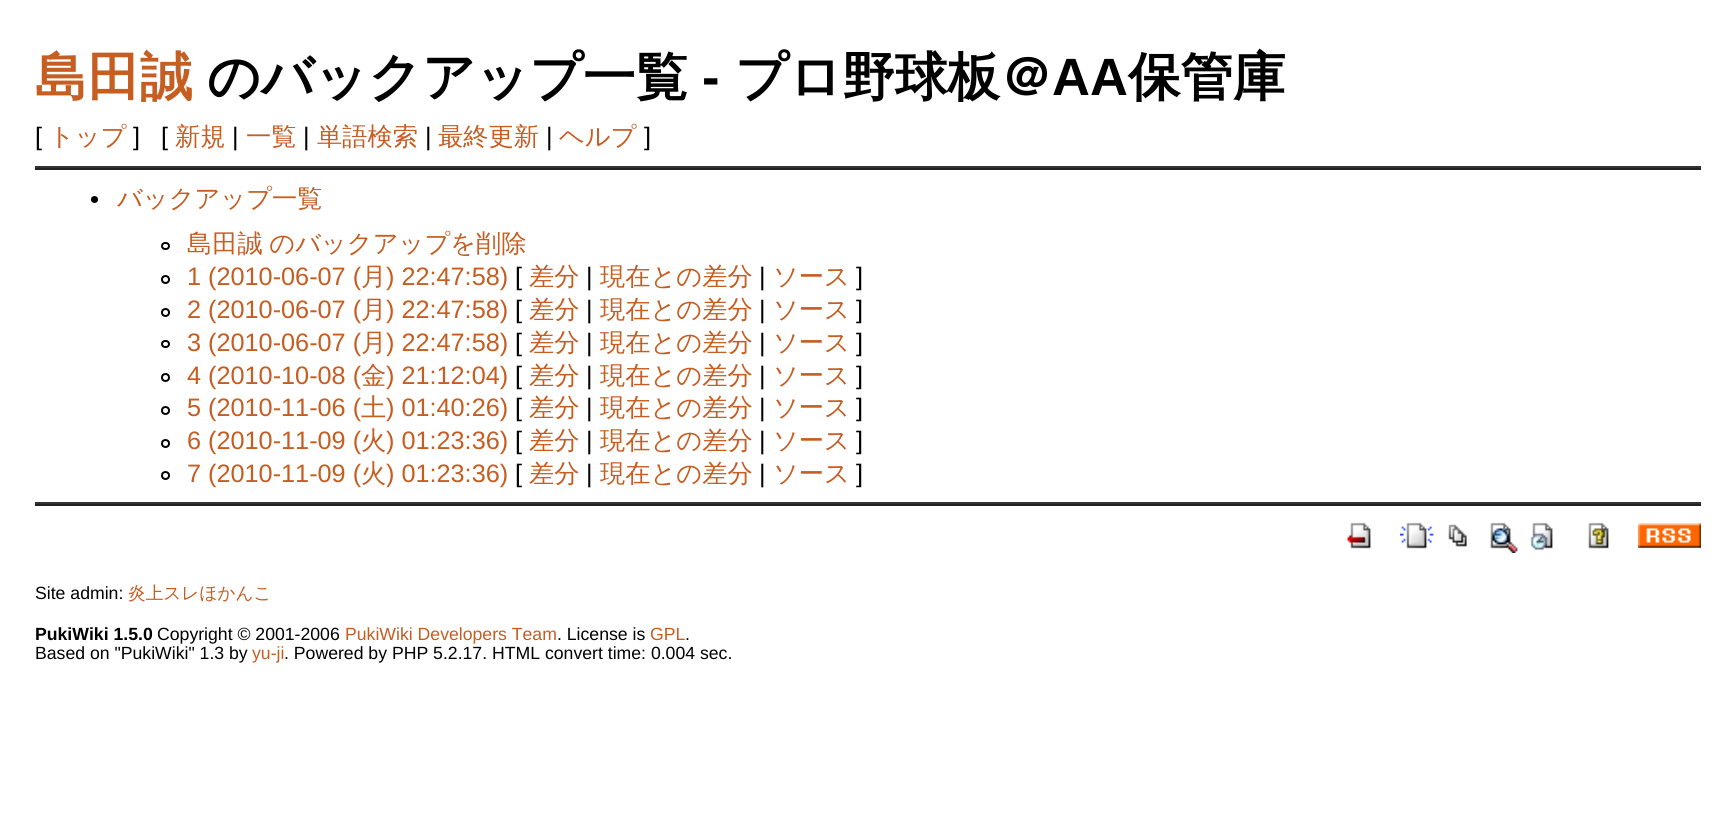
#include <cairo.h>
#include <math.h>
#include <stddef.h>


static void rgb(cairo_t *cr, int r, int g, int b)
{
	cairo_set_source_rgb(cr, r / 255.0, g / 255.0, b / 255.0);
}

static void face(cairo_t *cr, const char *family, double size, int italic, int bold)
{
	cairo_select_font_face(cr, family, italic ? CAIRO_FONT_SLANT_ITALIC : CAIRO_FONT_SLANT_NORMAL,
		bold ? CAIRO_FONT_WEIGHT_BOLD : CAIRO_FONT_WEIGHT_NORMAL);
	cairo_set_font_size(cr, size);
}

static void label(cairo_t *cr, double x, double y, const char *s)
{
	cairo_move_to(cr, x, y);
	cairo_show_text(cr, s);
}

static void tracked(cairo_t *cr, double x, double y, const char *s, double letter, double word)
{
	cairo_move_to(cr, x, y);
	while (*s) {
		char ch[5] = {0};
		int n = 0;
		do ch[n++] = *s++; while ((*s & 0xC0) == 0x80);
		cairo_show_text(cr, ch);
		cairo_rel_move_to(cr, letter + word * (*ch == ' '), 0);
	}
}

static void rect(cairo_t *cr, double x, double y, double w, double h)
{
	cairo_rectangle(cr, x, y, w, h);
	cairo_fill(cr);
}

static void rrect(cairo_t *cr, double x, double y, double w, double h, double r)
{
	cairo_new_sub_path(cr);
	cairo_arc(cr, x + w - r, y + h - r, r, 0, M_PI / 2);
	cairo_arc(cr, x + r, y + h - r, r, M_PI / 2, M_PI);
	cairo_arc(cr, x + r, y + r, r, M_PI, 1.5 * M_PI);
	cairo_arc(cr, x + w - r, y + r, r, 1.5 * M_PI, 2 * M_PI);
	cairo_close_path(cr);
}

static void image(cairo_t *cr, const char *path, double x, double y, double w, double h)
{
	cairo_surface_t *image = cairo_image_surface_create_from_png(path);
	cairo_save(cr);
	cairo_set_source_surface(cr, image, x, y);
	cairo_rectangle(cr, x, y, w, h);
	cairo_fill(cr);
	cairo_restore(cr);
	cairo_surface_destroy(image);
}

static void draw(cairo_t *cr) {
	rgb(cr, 255, 255, 255);
	cairo_paint(cr);
	face(cr, "WenQuanYi Zen Hei", 52.5, 0, 1);
	rgb(cr, 198, 93, 33);
	label(cr, 35, 95, "島田誠");
	rgb(cr, 0, 0, 0);
	label(cr, 207, 95, "のバックアップ一覧");
	face(cr, "Liberation Sans", 52.5, 0, 1);
	label(cr, 702, 95, "-");
	face(cr, "WenQuanYi Zen Hei", 52.5, 0, 1);
	label(cr, 735, 95, "プロ野球板＠");
	face(cr, "Liberation Sans", 52.5, 0, 1);
	label(cr, 1052, 95, "AA");
	face(cr, "WenQuanYi Zen Hei", 52.5, 0, 1);
	label(cr, 1128, 95, "保管庫");
	face(cr, "Liberation Sans", 25.25, 0, 0);
	label(cr, 35, 145, "[");
	face(cr, "WenQuanYi Zen Hei Medium", 25.25, 0, 0);
	rgb(cr, 198, 93, 33);
	label(cr, 49, 145, "トップ");
	face(cr, "Liberation Sans", 25.25, 0, 0);
	rgb(cr, 0, 0, 0);
	label(cr, 133, 145, "]");
	label(cr, 161, 145, "[");
	face(cr, "WenQuanYi Zen Hei Medium", 25.25, 0, 0);
	rgb(cr, 198, 93, 33);
	label(cr, 175, 145, "新規");
	face(cr, "Liberation Sans", 25.25, 0, 0);
	rgb(cr, 0, 0, 0);
	label(cr, 232, 145, "|");
	face(cr, "WenQuanYi Zen Hei Medium", 25.25, 0, 0);
	rgb(cr, 198, 93, 33);
	label(cr, 246, 145, "一覧");
	face(cr, "Liberation Sans", 25.25, 0, 0);
	rgb(cr, 0, 0, 0);
	label(cr, 303, 145, "|");
	face(cr, "WenQuanYi Zen Hei Medium", 25.25, 0, 0);
	rgb(cr, 198, 93, 33);
	label(cr, 317, 145, "単語検索");
	face(cr, "Liberation Sans", 25.25, 0, 0);
	rgb(cr, 0, 0, 0);
	label(cr, 425, 145, "|");
	face(cr, "WenQuanYi Zen Hei Medium", 25.25, 0, 0);
	rgb(cr, 198, 93, 33);
	label(cr, 438, 145, "最終更新");
	face(cr, "Liberation Sans", 25.25, 0, 0);
	rgb(cr, 0, 0, 0);
	label(cr, 546, 145, "|");
	face(cr, "WenQuanYi Zen Hei Medium", 25.25, 0, 0);
	rgb(cr, 198, 93, 33);
	label(cr, 559, 145, "ヘルプ");
	face(cr, "Liberation Sans", 25.25, 0, 0);
	rgb(cr, 0, 0, 0);
	label(cr, 644, 145, "]");
	rgb(cr, 51, 51, 51);
	rect(cr, 35, 166, 1666, 2);
	rgb(cr, 34, 34, 34);
	rect(cr, 35, 168, 1666, 2);
	rgb(cr, 0, 0, 0);
	cairo_new_path(cr);
	cairo_arc(cr, 94.5, 199.5, 3.5, 0, 2 * M_PI);
	cairo_fill(cr);
	face(cr, "WenQuanYi Zen Hei Medium", 25.25, 0, 0);
	rgb(cr, 198, 93, 33);
	label(cr, 117, 207, "バックアップ一覧");
	rrect(cr, 162, 243, 7, 6, 3);
	rgb(cr, 0, 0, 0);
	cairo_stroke(cr);
	rgb(cr, 198, 93, 33);
	tracked(cr, 187, 252, "島田誠 のバックアップを削除", 0, -1);
	cairo_new_path(cr);
	cairo_arc(cr, 165.5, 279.5, 3.5, 0, 2 * M_PI);
	rgb(cr, 0, 0, 0);
	cairo_stroke(cr);
	face(cr, "Liberation Sans", 25.25, 0, 0);
	rgb(cr, 198, 93, 33);
	label(cr, 187, 285, "1 (2010-06-07 (");
	face(cr, "WenQuanYi Zen Hei Medium", 25.25, 0, 0);
	label(cr, 361, 285, "月");
	face(cr, "Liberation Sans", 25.25, 0, 0);
	label(cr, 386, 285, ") 22:47:58)");
	rgb(cr, 0, 0, 0);
	label(cr, 515, 285, "[");
	face(cr, "WenQuanYi Zen Hei Medium", 25.25, 0, 0);
	rgb(cr, 198, 93, 33);
	label(cr, 529, 285, "差分");
	face(cr, "Liberation Sans", 25.25, 0, 0);
	rgb(cr, 0, 0, 0);
	label(cr, 586, 285, "|");
	face(cr, "WenQuanYi Zen Hei Medium", 25.25, 0, 0);
	rgb(cr, 198, 93, 33);
	label(cr, 600, 285, "現在との差分");
	face(cr, "Liberation Sans", 25.25, 0, 0);
	rgb(cr, 0, 0, 0);
	label(cr, 759, 285, "|");
	face(cr, "WenQuanYi Zen Hei Medium", 25.25, 0, 0);
	rgb(cr, 198, 93, 33);
	label(cr, 773, 285, "ソース");
	face(cr, "Liberation Sans", 25.25, 0, 0);
	rgb(cr, 0, 0, 0);
	label(cr, 856, 285, "]");
	cairo_new_path(cr);
	cairo_arc(cr, 165.5, 312.5, 3.5, 0, 2 * M_PI);
	cairo_stroke(cr);
	rgb(cr, 198, 93, 33);
	label(cr, 187, 318, "2 (2010-06-07 (");
	face(cr, "WenQuanYi Zen Hei Medium", 25.25, 0, 0);
	label(cr, 361, 318, "月");
	face(cr, "Liberation Sans", 25.25, 0, 0);
	label(cr, 386, 318, ") 22:47:58)");
	rgb(cr, 0, 0, 0);
	label(cr, 515, 318, "[");
	face(cr, "WenQuanYi Zen Hei Medium", 25.25, 0, 0);
	rgb(cr, 198, 93, 33);
	label(cr, 529, 318, "差分");
	face(cr, "Liberation Sans", 25.25, 0, 0);
	rgb(cr, 0, 0, 0);
	label(cr, 586, 318, "|");
	face(cr, "WenQuanYi Zen Hei Medium", 25.25, 0, 0);
	rgb(cr, 198, 93, 33);
	label(cr, 600, 318, "現在との差分");
	face(cr, "Liberation Sans", 25.25, 0, 0);
	rgb(cr, 0, 0, 0);
	label(cr, 759, 318, "|");
	face(cr, "WenQuanYi Zen Hei Medium", 25.25, 0, 0);
	rgb(cr, 198, 93, 33);
	label(cr, 773, 318, "ソース");
	face(cr, "Liberation Sans", 25.25, 0, 0);
	rgb(cr, 0, 0, 0);
	label(cr, 856, 318, "]");
	rrect(cr, 162, 341, 7, 6, 3);
	cairo_stroke(cr);
	rgb(cr, 198, 93, 33);
	label(cr, 187, 351, "3 (2010-06-07 (");
	face(cr, "WenQuanYi Zen Hei Medium", 25.25, 0, 0);
	label(cr, 361, 351, "月");
	face(cr, "Liberation Sans", 25.25, 0, 0);
	label(cr, 386, 351, ") 22:47:58)");
	rgb(cr, 0, 0, 0);
	label(cr, 515, 351, "[");
	face(cr, "WenQuanYi Zen Hei Medium", 25.25, 0, 0);
	rgb(cr, 198, 93, 33);
	label(cr, 529, 351, "差分");
	face(cr, "Liberation Sans", 25.25, 0, 0);
	rgb(cr, 0, 0, 0);
	label(cr, 586, 351, "|");
	face(cr, "WenQuanYi Zen Hei Medium", 25.25, 0, 0);
	rgb(cr, 198, 93, 33);
	label(cr, 600, 351, "現在との差分");
	face(cr, "Liberation Sans", 25.25, 0, 0);
	rgb(cr, 0, 0, 0);
	label(cr, 759, 351, "|");
	face(cr, "WenQuanYi Zen Hei Medium", 25.25, 0, 0);
	rgb(cr, 198, 93, 33);
	label(cr, 773, 351, "ソース");
	face(cr, "Liberation Sans", 25.25, 0, 0);
	rgb(cr, 0, 0, 0);
	label(cr, 856, 351, "]");
	cairo_new_path(cr);
	cairo_arc(cr, 165.5, 377.5, 3.5, 0, 2 * M_PI);
	cairo_stroke(cr);
	rgb(cr, 198, 93, 33);
	label(cr, 187, 384, "4 (2010-10-08 (");
	face(cr, "WenQuanYi Zen Hei Medium", 25.25, 0, 0);
	label(cr, 361, 384, "金");
	face(cr, "Liberation Sans", 25.25, 0, 0);
	label(cr, 386, 384, ") 21:12:04)");
	rgb(cr, 0, 0, 0);
	label(cr, 515, 384, "[");
	face(cr, "WenQuanYi Zen Hei Medium", 25.25, 0, 0);
	rgb(cr, 198, 93, 33);
	label(cr, 529, 384, "差分");
	face(cr, "Liberation Sans", 25.25, 0, 0);
	rgb(cr, 0, 0, 0);
	label(cr, 586, 384, "|");
	face(cr, "WenQuanYi Zen Hei Medium", 25.25, 0, 0);
	rgb(cr, 198, 93, 33);
	label(cr, 600, 384, "現在との差分");
	face(cr, "Liberation Sans", 25.25, 0, 0);
	rgb(cr, 0, 0, 0);
	label(cr, 759, 384, "|");
	face(cr, "WenQuanYi Zen Hei Medium", 25.25, 0, 0);
	rgb(cr, 198, 93, 33);
	label(cr, 773, 384, "ソース");
	face(cr, "Liberation Sans", 25.25, 0, 0);
	rgb(cr, 0, 0, 0);
	label(cr, 856, 384, "]");
	cairo_new_path(cr);
	cairo_arc(cr, 165.5, 410.5, 3.5, 0, 2 * M_PI);
	cairo_stroke(cr);
	rgb(cr, 198, 93, 33);
	label(cr, 187, 416, "5 (2010-11-06 (");
	face(cr, "WenQuanYi Zen Hei Medium", 25.25, 0, 0);
	label(cr, 361, 416, "土");
	face(cr, "Liberation Sans", 25.25, 0, 0);
	label(cr, 386, 416, ") 01:40:26)");
	rgb(cr, 0, 0, 0);
	label(cr, 515, 416, "[");
	face(cr, "WenQuanYi Zen Hei Medium", 25.25, 0, 0);
	rgb(cr, 198, 93, 33);
	label(cr, 529, 416, "差分");
	face(cr, "Liberation Sans", 25.25, 0, 0);
	rgb(cr, 0, 0, 0);
	label(cr, 586, 416, "|");
	face(cr, "WenQuanYi Zen Hei Medium", 25.25, 0, 0);
	rgb(cr, 198, 93, 33);
	label(cr, 600, 416, "現在との差分");
	face(cr, "Liberation Sans", 25.25, 0, 0);
	rgb(cr, 0, 0, 0);
	label(cr, 759, 416, "|");
	face(cr, "WenQuanYi Zen Hei Medium", 25.25, 0, 0);
	rgb(cr, 198, 93, 33);
	label(cr, 773, 416, "ソース");
	face(cr, "Liberation Sans", 25.25, 0, 0);
	rgb(cr, 0, 0, 0);
	label(cr, 856, 416, "]");
	cairo_new_path(cr);
	cairo_arc(cr, 165.5, 443.5, 3.5, 0, 2 * M_PI);
	cairo_stroke(cr);
	rgb(cr, 198, 93, 33);
	label(cr, 187, 449, "6 (2010-11-09 (");
	face(cr, "WenQuanYi Zen Hei Medium", 25.25, 0, 0);
	label(cr, 361, 449, "火");
	face(cr, "Liberation Sans", 25.25, 0, 0);
	label(cr, 386, 449, ") 01:23:36)");
	rgb(cr, 0, 0, 0);
	label(cr, 515, 449, "[");
	face(cr, "WenQuanYi Zen Hei Medium", 25.25, 0, 0);
	rgb(cr, 198, 93, 33);
	label(cr, 529, 449, "差分");
	face(cr, "Liberation Sans", 25.25, 0, 0);
	rgb(cr, 0, 0, 0);
	label(cr, 586, 449, "|");
	face(cr, "WenQuanYi Zen Hei Medium", 25.25, 0, 0);
	rgb(cr, 198, 93, 33);
	label(cr, 600, 449, "現在との差分");
	face(cr, "Liberation Sans", 25.25, 0, 0);
	rgb(cr, 0, 0, 0);
	label(cr, 759, 449, "|");
	face(cr, "WenQuanYi Zen Hei Medium", 25.25, 0, 0);
	rgb(cr, 198, 93, 33);
	label(cr, 773, 449, "ソース");
	face(cr, "Liberation Sans", 25.25, 0, 0);
	rgb(cr, 0, 0, 0);
	label(cr, 856, 449, "]");
	cairo_new_path(cr);
	cairo_arc(cr, 165.5, 475.5, 3.5, 0, 2 * M_PI);
	cairo_stroke(cr);
	rgb(cr, 198, 93, 33);
	label(cr, 187, 482, "7 (2010-11-09 (");
	face(cr, "WenQuanYi Zen Hei Medium", 25.25, 0, 0);
	label(cr, 361, 482, "火");
	face(cr, "Liberation Sans", 25.25, 0, 0);
	label(cr, 386, 482, ") 01:23:36)");
	rgb(cr, 0, 0, 0);
	label(cr, 515, 482, "[");
	face(cr, "WenQuanYi Zen Hei Medium", 25.25, 0, 0);
	rgb(cr, 198, 93, 33);
	label(cr, 529, 482, "差分");
	face(cr, "Liberation Sans", 25.25, 0, 0);
	rgb(cr, 0, 0, 0);
	label(cr, 586, 482, "|");
	face(cr, "WenQuanYi Zen Hei Medium", 25.25, 0, 0);
	rgb(cr, 198, 93, 33);
	label(cr, 600, 482, "現在との差分");
	face(cr, "Liberation Sans", 25.25, 0, 0);
	rgb(cr, 0, 0, 0);
	label(cr, 759, 482, "|");
	face(cr, "WenQuanYi Zen Hei Medium", 25.25, 0, 0);
	rgb(cr, 198, 93, 33);
	label(cr, 773, 482, "ソース");
	face(cr, "Liberation Sans", 25.25, 0, 0);
	rgb(cr, 0, 0, 0);
	label(cr, 856, 482, "]");
	rgb(cr, 51, 51, 51);
	rect(cr, 35, 502, 1666, 2);
	rgb(cr, 34, 34, 34);
	rect(cr, 35, 504, 1666, 2);
	image(cr, "image0.png", 1347, 522, 24, 27);
	image(cr, "image1.png", 1400, 522, 34, 27);
	image(cr, "image2.png", 1448, 524, 19, 23);
	image(cr, "image3.png", 1490, 522, 28, 31);
	image(cr, "image4.png", 1530, 522, 23, 28);
	image(cr, "image5.png", 1588, 522, 21, 27);
	image(cr, "image6.png", 1638, 523, 63, 25);
	face(cr, "Liberation Sans", 17.65, 0, 0);
	rgb(cr, 0, 0, 0);
	label(cr, 35, 599, "Site admin:");
	face(cr, "WenQuanYi Zen Hei Medium", 17.65, 0, 0);
	rgb(cr, 198, 93, 33);
	label(cr, 128, 599, "炎上スレほかんこ");
	face(cr, "Liberation Sans", 17.65, 0, 1);
	rgb(cr, 0, 0, 0);
	label(cr, 35, 640, "PukiWiki 1.5.0");
	face(cr, "Liberation Sans", 17.65, 0, 0);
	label(cr, 157, 640, "Copyright © 2001-2006");
	rgb(cr, 198, 93, 33);
	label(cr, 345, 640, "PukiWiki Developers Team");
	rgb(cr, 0, 0, 0);
	label(cr, 557, 640, ". License is");
	rgb(cr, 198, 93, 33);
	label(cr, 650, 640, "GPL");
	rgb(cr, 0, 0, 0);
	label(cr, 685, 640, ".");
	label(cr, 35, 659, "Based on \"PukiWiki\" 1.3 by");
	rgb(cr, 198, 93, 33);
	label(cr, 252, 659, "yu-ji");
	rgb(cr, 0, 0, 0);
	label(cr, 284, 659, ". Powered by PHP 5.2.17. HTML convert time: 0.004 sec.");
}

int main(void) {
	cairo_surface_t *surface = cairo_image_surface_create(CAIRO_FORMAT_RGB24, 1735, 820);
	cairo_t *cr = cairo_create(surface);
	cairo_font_options_t *options = cairo_font_options_create();
	cairo_font_options_set_hint_metrics(options, CAIRO_HINT_METRICS_OFF);
	cairo_font_options_set_hint_style(options, CAIRO_HINT_STYLE_NONE);
	cairo_set_font_options(cr, options);
	cairo_set_miter_limit(cr, 4);
	draw(cr);
	cairo_surface_write_to_png(surface, "render.png");
	cairo_font_options_destroy(options);
	cairo_destroy(cr);
	cairo_surface_destroy(surface);
	return 0;
}
